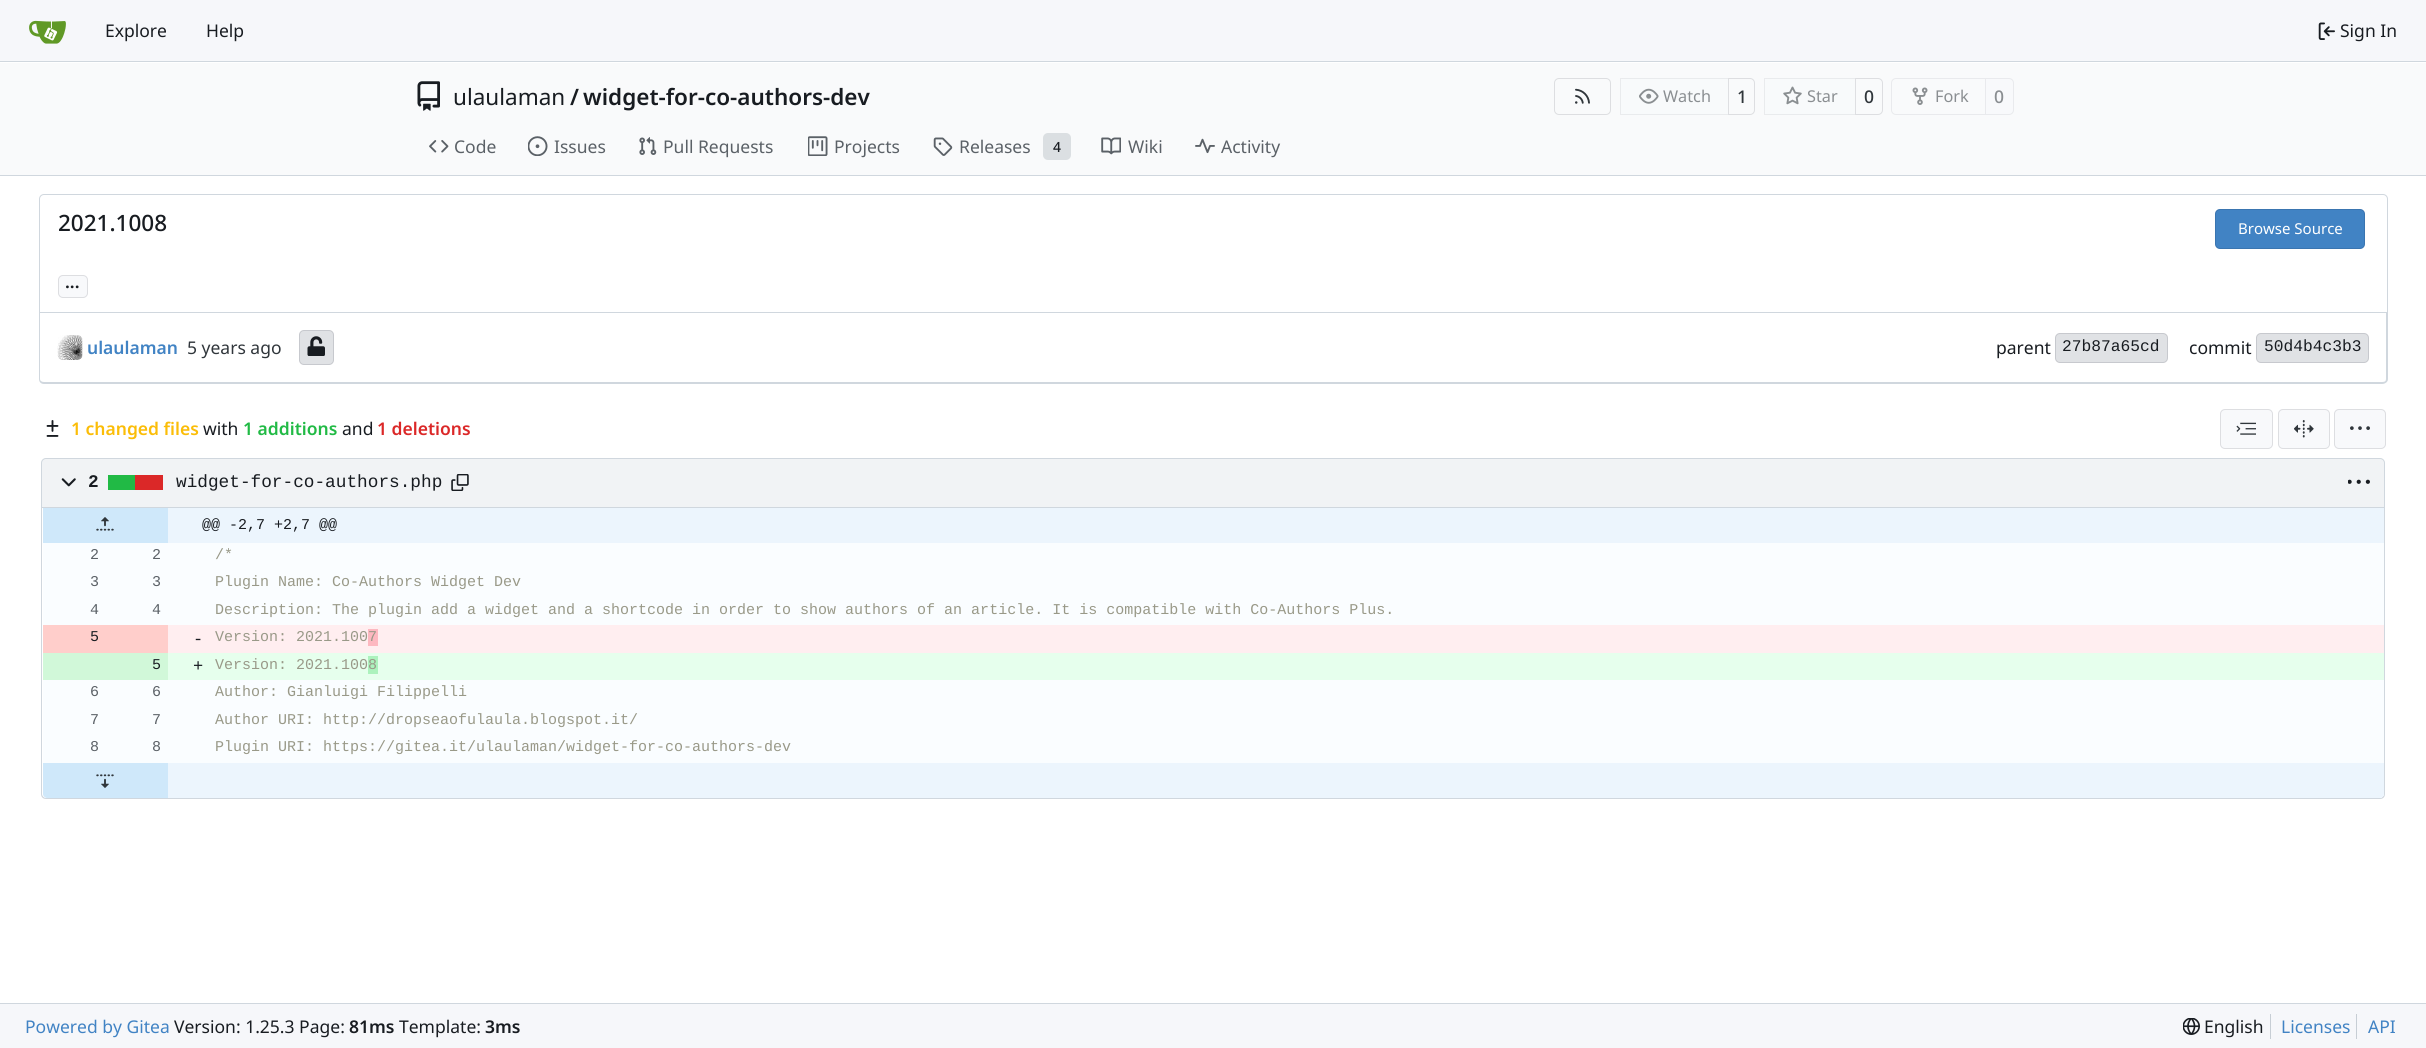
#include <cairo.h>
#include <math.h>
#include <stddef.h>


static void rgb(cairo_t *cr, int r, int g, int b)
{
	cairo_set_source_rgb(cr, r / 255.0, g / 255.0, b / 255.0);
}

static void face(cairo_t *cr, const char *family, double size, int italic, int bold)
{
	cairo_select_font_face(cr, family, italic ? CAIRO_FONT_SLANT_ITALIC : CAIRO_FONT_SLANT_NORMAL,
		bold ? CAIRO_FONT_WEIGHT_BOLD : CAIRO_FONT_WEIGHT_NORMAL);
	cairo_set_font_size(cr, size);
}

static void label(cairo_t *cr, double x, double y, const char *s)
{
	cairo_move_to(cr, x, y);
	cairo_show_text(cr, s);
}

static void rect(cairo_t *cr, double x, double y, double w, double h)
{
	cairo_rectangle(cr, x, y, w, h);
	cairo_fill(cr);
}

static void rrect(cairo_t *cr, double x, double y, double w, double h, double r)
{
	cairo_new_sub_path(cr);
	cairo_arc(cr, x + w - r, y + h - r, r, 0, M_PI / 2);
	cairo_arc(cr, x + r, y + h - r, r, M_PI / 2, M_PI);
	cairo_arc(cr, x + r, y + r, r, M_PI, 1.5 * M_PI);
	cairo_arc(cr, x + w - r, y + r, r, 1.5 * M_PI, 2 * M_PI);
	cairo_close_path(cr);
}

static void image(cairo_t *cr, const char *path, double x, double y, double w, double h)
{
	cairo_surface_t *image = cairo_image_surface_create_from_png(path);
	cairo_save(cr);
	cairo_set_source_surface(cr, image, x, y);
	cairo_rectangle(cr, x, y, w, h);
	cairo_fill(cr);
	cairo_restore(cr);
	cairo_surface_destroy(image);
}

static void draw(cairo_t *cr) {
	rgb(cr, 255, 255, 255);
	cairo_paint(cr);
	rgb(cr, 246, 247, 250);
	rect(cr, 0, 0, 2426, 61);
	rgb(cr, 208, 215, 222);
	rect(cr, 0, 61, 2426, 1);
	image(cr, "image0.png", 29, 20, 37, 24);
	face(cr, "Noto Sans", 17.5, 0, 0);
	rgb(cr, 24, 28, 33);
	label(cr, 105, 37, "Explore");
	label(cr, 206, 37, "Help");
	image(cr, "image1.png", 2318, 22, 17, 18);
	label(cr, 2340, 37, "Sign In");
	rgb(cr, 249, 250, 251);
	rect(cr, 0, 63, 2426, 112);
	image(cr, "image2.png", 417, 81, 23, 30);
	face(cr, "Noto Sans", 22.5, 0, 0);
	rgb(cr, 24, 28, 33);
	label(cr, 453, 105, "ulaulaman");
	face(cr, "Noto Sans SemiBold", 22.5, 0, 0);
	label(cr, 570, 105, "/");
	label(cr, 583, 105, "widget-for-co-authors-dev");
	rrect(cr, 1554.5, 78.5, 56, 36, 4.5);
	rgb(cr, 221, 222, 225);
	cairo_set_line_width(cr, 1);
	cairo_stroke(cr);
	image(cr, "image3.png", 1575, 88, 15, 16);
	cairo_new_path(cr);
	cairo_move_to(cr, 1728.5, 78.5);
	cairo_line_to(cr, 1750, 78.5);
	cairo_curve_to(cr, 1752.5, 78.5, 1754.5, 80.5, 1754.5, 83);
	cairo_line_to(cr, 1754.5, 110);
	cairo_curve_to(cr, 1754.5, 112.5, 1752.5, 114.5, 1750, 114.5);
	cairo_line_to(cr, 1728.5, 114.5);
	cairo_close_path(cr);
	cairo_stroke(cr);
	cairo_set_source_rgba(cr, 0.973, 0.976, 0.984, 0.55);
	cairo_new_path(cr);
	cairo_move_to(cr, 1625, 78);
	cairo_line_to(cr, 1729, 78);
	cairo_line_to(cr, 1729, 115);
	cairo_line_to(cr, 1625, 115);
	cairo_curve_to(cr, 1622, 115, 1620, 113, 1620, 110);
	cairo_line_to(cr, 1620, 83);
	cairo_curve_to(cr, 1620, 80, 1622, 78, 1625, 78);
	cairo_close_path(cr);
	cairo_fill(cr);
	cairo_rectangle(cr, 1620.5, 78.5, 108, 36);
	cairo_set_source_rgba(cr, 0, 0, 0.09, 0.06);
	cairo_stroke(cr);
	image(cr, "image4.png", 1639, 88, 20, 16);
	face(cr, "Noto Sans", 16.25, 0, 0);
	rgb(cr, 138, 142, 145);
	label(cr, 1663, 102, "Watch");
	face(cr, "Noto Sans Medium", 17.5, 0, 0);
	rgb(cr, 48, 54, 59);
	label(cr, 1737, 103, "1");
	cairo_new_path(cr);
	cairo_move_to(cr, 1855.5, 78.5);
	cairo_line_to(cr, 1878, 78.5);
	cairo_curve_to(cr, 1880.5, 78.5, 1882.5, 80.5, 1882.5, 83);
	cairo_line_to(cr, 1882.5, 110);
	cairo_curve_to(cr, 1882.5, 112.5, 1880.5, 114.5, 1878, 114.5);
	cairo_line_to(cr, 1855.5, 114.5);
	cairo_close_path(cr);
	rgb(cr, 221, 222, 225);
	cairo_stroke(cr);
	cairo_set_source_rgba(cr, 0.973, 0.976, 0.984, 0.55);
	cairo_new_path(cr);
	cairo_move_to(cr, 1769, 78);
	cairo_line_to(cr, 1856, 78);
	cairo_line_to(cr, 1856, 115);
	cairo_line_to(cr, 1769, 115);
	cairo_curve_to(cr, 1766, 115, 1764, 113, 1764, 110);
	cairo_line_to(cr, 1764, 83);
	cairo_curve_to(cr, 1764, 80, 1766, 78, 1769, 78);
	cairo_close_path(cr);
	cairo_fill(cr);
	cairo_rectangle(cr, 1764.5, 78.5, 91, 36);
	cairo_set_source_rgba(cr, 0, 0, 0.09, 0.06);
	cairo_stroke(cr);
	image(cr, "image5.png", 1783, 86, 19, 19);
	face(cr, "Noto Sans", 16.25, 0, 0);
	rgb(cr, 138, 142, 145);
	label(cr, 1807, 102, "Star");
	face(cr, "Noto Sans Medium", 17.5, 0, 0);
	rgb(cr, 48, 54, 59);
	label(cr, 1864, 103, "0");
	cairo_new_path(cr);
	cairo_move_to(cr, 1896, 78.5);
	cairo_line_to(cr, 1985.5, 78.5);
	cairo_line_to(cr, 1985.5, 114.5);
	cairo_line_to(cr, 1896, 114.5);
	cairo_curve_to(cr, 1893.5, 114.5, 1891.5, 112.5, 1891.5, 110);
	cairo_line_to(cr, 1891.5, 83);
	cairo_curve_to(cr, 1891.5, 80.5, 1893.5, 78.5, 1896, 78.5);
	cairo_close_path(cr);
	rgb(cr, 233, 234, 237);
	cairo_stroke(cr);
	image(cr, "image6.png", 1912, 87, 16, 18);
	face(cr, "Noto Sans", 16.25, 0, 0);
	rgb(cr, 138, 142, 145);
	label(cr, 1935, 102, "Fork");
	rgb(cr, 248, 249, 251);
	cairo_new_path(cr);
	cairo_move_to(cr, 1985.5, 78.5);
	cairo_line_to(cr, 2009, 78.5);
	cairo_curve_to(cr, 2011.5, 78.5, 2013.5, 80.5, 2013.5, 83);
	cairo_line_to(cr, 2013.5, 110);
	cairo_curve_to(cr, 2013.5, 112.5, 2011.5, 114.5, 2009, 114.5);
	cairo_line_to(cr, 1985.5, 114.5);
	cairo_close_path(cr);
	cairo_fill_preserve(cr);
	rgb(cr, 233, 234, 237);
	cairo_stroke(cr);
	face(cr, "Noto Sans Medium", 17.5, 0, 0);
	rgb(cr, 138, 142, 145);
	label(cr, 1994, 103, "0");
	image(cr, "image7.png", 429, 140, 20, 13);
	face(cr, "Noto Sans", 17.5, 0, 0);
	rgb(cr, 91, 97, 103);
	label(cr, 454, 153, "Code");
	image(cr, "image8.png", 528, 136, 20, 20);
	label(cr, 554, 153, "Issues");
	image(cr, "image9.png", 639, 137, 18, 18);
	label(cr, 663, 153, "Pull Requests");
	image(cr, "image10.png", 808, 136, 20, 20);
	label(cr, 834, 153, "Projects");
	image(cr, "image11.png", 933, 137, 20, 19);
	label(cr, 959, 153, "Releases");
	rgb(cr, 219, 223, 226);
	rrect(cr, 1043, 133, 28, 27, 5);
	cairo_fill(cr);
	face(cr, "Noto Sans Medium", 14, 0, 0);
	rgb(cr, 24, 28, 33);
	label(cr, 1053, 152, "4");
	image(cr, "image12.png", 1101, 137, 20, 18);
	face(cr, "Noto Sans", 17.5, 0, 0);
	rgb(cr, 91, 97, 103);
	label(cr, 1128, 153, "Wiki");
	image(cr, "image13.png", 1195, 138, 20, 16);
	label(cr, 1221, 153, "Activity");
	rgb(cr, 208, 215, 222);
	rect(cr, 0, 175, 2426, 1);
	cairo_new_path(cr);
	cairo_move_to(cr, 44, 194.5);
	cairo_line_to(cr, 2383, 194.5);
	cairo_curve_to(cr, 2385.5, 194.5, 2387.5, 196.5, 2387.5, 199);
	cairo_line_to(cr, 2387.5, 312.5);
	cairo_line_to(cr, 39.5, 312.5);
	cairo_line_to(cr, 39.5, 199);
	cairo_curve_to(cr, 39.5, 196.5, 41.5, 194.5, 44, 194.5);
	cairo_close_path(cr);
	cairo_stroke(cr);
	face(cr, "Noto Sans Medium", 22.5, 0, 0);
	rgb(cr, 24, 28, 33);
	label(cr, 58, 231, "2021.1008");
	rgb(cr, 65, 131, 196);
	rrect(cr, 2215, 209, 150, 40, 5);
	cairo_fill(cr);
	rrect(cr, 2215.5, 209.5, 149, 39, 4.5);
	cairo_set_source_rgba(cr, 0, 0, 0.09, 0.11);
	cairo_stroke(cr);
	face(cr, "Noto Sans", 15, 0, 0);
	rgb(cr, 255, 255, 255);
	label(cr, 2238, 234, "Browse Source");
	rgb(cr, 248, 249, 251);
	rrect(cr, 58, 275, 30, 23, 5);
	cairo_fill(cr);
	rrect(cr, 58.5, 275.5, 29, 22, 4.5);
	cairo_set_source_rgba(cr, 0, 0, 0.09, 0.11);
	cairo_stroke(cr);
	face(cr, "Noto Sans SemiBold", 17.5, 0, 0);
	rgb(cr, 24, 28, 33);
	label(cr, 65, 288, "...");
	rgb(cr, 208, 215, 222);
	cairo_set_fill_rule(cr, CAIRO_FILL_RULE_EVEN_ODD);
	cairo_new_path(cr);
	cairo_move_to(cr, 39, 312);
	cairo_line_to(cr, 2388, 312);
	cairo_line_to(cr, 2388, 379);
	cairo_curve_to(cr, 2388, 382, 2385, 384, 2382, 384);
	cairo_line_to(cr, 44, 384);
	cairo_curve_to(cr, 41, 384, 39, 382, 39, 379);
	cairo_close_path(cr);
	cairo_move_to(cr, 40, 312);
	cairo_line_to(cr, 2386, 312);
	cairo_line_to(cr, 2386, 379);
	cairo_curve_to(cr, 2386, 381, 2385, 382, 2382, 382);
	cairo_line_to(cr, 44, 382);
	cairo_curve_to(cr, 42, 382, 40, 381, 40, 379);
	cairo_close_path(cr);
	cairo_fill(cr);
	image(cr, "image14.png", 57, 335, 26, 25);
	rgb(cr, 65, 131, 196);
	label(cr, 87, 354, "ulaulaman");
	face(cr, "Noto Sans", 17.5, 0, 0);
	rgb(cr, 48, 54, 59);
	label(cr, 187, 354, "5 years ago");
	rgb(cr, 224, 226, 229);
	rrect(cr, 299, 330, 35, 35, 5);
	cairo_fill(cr);
	rrect(cr, 299.5, 330.5, 34, 34, 4.5);
	cairo_set_source_rgba(cr, 0, 0, 0.09, 0.11);
	cairo_stroke(cr);
	image(cr, "image15.png", 307, 336, 18, 20);
	rgb(cr, 24, 28, 33);
	label(cr, 1996, 354, "parent");
	rgb(cr, 224, 226, 229);
	rrect(cr, 2055, 333, 113, 30, 5);
	cairo_fill(cr);
	rrect(cr, 2055.5, 333.5, 112, 29, 4.5);
	cairo_set_source_rgba(cr, 0, 0, 0.09, 0.11);
	cairo_stroke(cr);
	face(cr, "Liberation Mono", 16.25, 0, 0);
	rgb(cr, 24, 28, 33);
	label(cr, 2062, 351, "27b87a65cd");
	face(cr, "Noto Sans", 17.5, 0, 0);
	label(cr, 2189, 354, "commit");
	rgb(cr, 224, 226, 229);
	rrect(cr, 2256, 333, 113, 30, 5);
	cairo_fill(cr);
	rrect(cr, 2256.5, 333.5, 112, 29, 4.5);
	cairo_set_source_rgba(cr, 0, 0, 0.09, 0.11);
	cairo_stroke(cr);
	face(cr, "Liberation Mono", 16.25, 0, 0);
	rgb(cr, 24, 28, 33);
	label(cr, 2264, 351, "50d4b4c3b3");
	image(cr, "image16.png", 46, 420, 13, 17);
	face(cr, "Noto Sans SemiBold", 17.5, 0, 0);
	rgb(cr, 251, 189, 8);
	label(cr, 71, 435, "1 changed files");
	face(cr, "Noto Sans", 17.5, 0, 0);
	rgb(cr, 24, 28, 33);
	label(cr, 203, 435, "with");
	face(cr, "Noto Sans SemiBold", 17.5, 0, 0);
	rgb(cr, 33, 186, 69);
	label(cr, 243, 435, "1 additions");
	face(cr, "Noto Sans", 17.5, 0, 0);
	rgb(cr, 24, 28, 33);
	label(cr, 342, 435, "and");
	face(cr, "Noto Sans SemiBold", 17.5, 0, 0);
	rgb(cr, 219, 40, 40);
	label(cr, 377, 435, "1 deletions");
	rgb(cr, 248, 249, 251);
	rrect(cr, 2220, 409, 53, 40, 5);
	cairo_fill(cr);
	rrect(cr, 2220.5, 409.5, 52, 39, 4.5);
	cairo_set_source_rgba(cr, 0, 0, 0.09, 0.11);
	cairo_stroke(cr);
	image(cr, "image17.png", 2236, 422, 20, 13);
	rgb(cr, 248, 249, 251);
	rrect(cr, 2278, 409, 52, 40, 5);
	cairo_fill(cr);
	rrect(cr, 2278.5, 409.5, 51, 39, 4.5);
	cairo_set_source_rgba(cr, 0, 0, 0.09, 0.11);
	cairo_stroke(cr);
	image(cr, "image18.png", 2294, 420, 20, 18);
	rgb(cr, 248, 249, 251);
	rrect(cr, 2334, 409, 52, 40, 5);
	cairo_fill(cr);
	rrect(cr, 2334.5, 409.5, 51, 39, 4.5);
	cairo_set_source_rgba(cr, 0, 0, 0.09, 0.11);
	cairo_stroke(cr);
	image(cr, "image19.png", 2350, 426, 20, 4);
	rgb(cr, 241, 243, 245);
	cairo_new_path(cr);
	cairo_move_to(cr, 46, 458.5);
	cairo_line_to(cr, 2380, 458.5);
	cairo_curve_to(cr, 2382.5, 458.5, 2384.5, 460.5, 2384.5, 463);
	cairo_line_to(cr, 2384.5, 507.5);
	cairo_line_to(cr, 41.5, 507.5);
	cairo_line_to(cr, 41.5, 463);
	cairo_curve_to(cr, 41.5, 460.5, 43.5, 458.5, 46, 458.5);
	cairo_close_path(cr);
	cairo_fill_preserve(cr);
	rgb(cr, 208, 215, 222);
	cairo_stroke(cr);
	image(cr, "image20.png", 61, 478, 15, 9);
	face(cr, "Liberation Mono", 17.75, 0, 1);
	rgb(cr, 24, 28, 33);
	label(cr, 88, 487, "2");
	rgb(cr, 219, 40, 40);
	rect(cr, 135, 475, 28, 15);
	rgb(cr, 33, 186, 69);
	rect(cr, 108, 475, 27, 15);
	face(cr, "Liberation Mono", 17.75, 0, 0);
	rgb(cr, 24, 28, 33);
	label(cr, 176, 487, "widget-for-co-authors.php");
	image(cr, "image21.png", 451, 474, 18, 17);
	image(cr, "image22.png", 2348, 479, 22, 5);
	rgb(cr, 208, 215, 222);
	cairo_new_path(cr);
	cairo_move_to(cr, 41, 508);
	cairo_line_to(cr, 2385, 508);
	cairo_line_to(cr, 2385, 794);
	cairo_curve_to(cr, 2385, 797, 2383, 799, 2380, 799);
	cairo_line_to(cr, 46, 799);
	cairo_curve_to(cr, 43, 799, 41, 797, 41, 794);
	cairo_close_path(cr);
	cairo_move_to(cr, 42, 508);
	cairo_line_to(cr, 2384, 508);
	cairo_line_to(cr, 2384, 794);
	cairo_curve_to(cr, 2384, 796, 2382, 798, 2380, 798);
	cairo_line_to(cr, 46, 798);
	cairo_curve_to(cr, 44, 798, 42, 796, 42, 794);
	cairo_close_path(cr);
	cairo_fill(cr);
	rgb(cr, 250, 253, 255);
	rrect(cr, 43, 508, 2341, 290, 5);
	cairo_fill(cr);
	rgb(cr, 236, 245, 253);
	rect(cr, 168, 508, 2216, 35);
	rgb(cr, 207, 232, 250);
	rect(cr, 43, 508, 125, 35);
	image(cr, "image23.png", 96, 517, 18, 14);
	face(cr, "Liberation Mono", 15, 0, 0);
	rgb(cr, 24, 28, 33);
	label(cr, 202, 529, "@@ -2,7 +2,7 @@");
	rgb(cr, 91, 97, 103);
	label(cr, 90, 559, "2");
	label(cr, 152, 559, "2");
	rgb(cr, 153, 153, 136);
	label(cr, 215, 559, "/*");
	rgb(cr, 91, 97, 103);
	label(cr, 90, 586, "3");
	label(cr, 152, 586, "3");
	rgb(cr, 153, 153, 136);
	label(cr, 215, 586, "Plugin Name: Co-Authors Widget Dev");
	rgb(cr, 91, 97, 103);
	label(cr, 90, 614, "4");
	label(cr, 152, 614, "4");
	rgb(cr, 153, 153, 136);
	label(cr, 215, 614, "Description: The plugin add a widget and a shortcode in order to show authors of an article. It is compatible with Co-Authors Plus.");
	rgb(cr, 255, 238, 240);
	rect(cr, 168, 625, 2216, 28);
	rgb(cr, 255, 206, 203);
	rect(cr, 43, 625, 125, 28);
	rgb(cr, 24, 28, 33);
	label(cr, 90, 641, "5");
	face(cr, "Liberation Mono", 17, 0, 0);
	label(cr, 193, 644, "-");
	face(cr, "Liberation Mono", 15, 0, 0);
	rgb(cr, 153, 153, 136);
	label(cr, 215, 641, "Version: 2021.100");
	rgb(cr, 253, 184, 192);
	rect(cr, 368, 629, 10, 17);
	rgb(cr, 153, 153, 136);
	label(cr, 368, 641, "7");
	rgb(cr, 230, 255, 237);
	rect(cr, 168, 653, 2216, 27);
	rgb(cr, 209, 248, 217);
	rect(cr, 43, 653, 125, 27);
	rgb(cr, 153, 153, 136);
	label(cr, 215, 669, "Version: 2021.100");
	rgb(cr, 172, 242, 189);
	rect(cr, 368, 656, 10, 18);
	rgb(cr, 153, 153, 136);
	label(cr, 368, 669, "8");
	rgb(cr, 24, 28, 33);
	label(cr, 152, 669, "5");
	face(cr, "Liberation Mono", 17, 0, 0);
	label(cr, 193, 671, "+");
	face(cr, "Liberation Mono", 15, 0, 0);
	rgb(cr, 91, 97, 103);
	label(cr, 90, 696, "6");
	label(cr, 152, 696, "6");
	rgb(cr, 153, 153, 136);
	label(cr, 215, 696, "Author: Gianluigi Filippelli");
	rgb(cr, 91, 97, 103);
	label(cr, 90, 724, "7");
	label(cr, 152, 724, "7");
	rgb(cr, 153, 153, 136);
	label(cr, 215, 724, "Author URI: http://dropseaofulaula.blogspot.it/");
	rgb(cr, 91, 97, 103);
	label(cr, 90, 751, "8");
	label(cr, 152, 751, "8");
	rgb(cr, 153, 153, 136);
	label(cr, 215, 751, "Plugin URI: https://gitea.it/ulaulaman/widget-for-co-authors-dev");
	rgb(cr, 207, 232, 250);
	cairo_new_path(cr);
	cairo_move_to(cr, 43, 763);
	cairo_line_to(cr, 168, 763);
	cairo_line_to(cr, 168, 798);
	cairo_line_to(cr, 47, 798);
	cairo_curve_to(cr, 45, 798, 43, 796, 43, 794);
	cairo_close_path(cr);
	cairo_fill(cr);
	image(cr, "image24.png", 96, 774, 18, 14);
	rgb(cr, 236, 245, 253);
	rect(cr, 168, 763, 35, 35);
	cairo_new_path(cr);
	cairo_move_to(cr, 203, 763);
	cairo_line_to(cr, 2384, 763);
	cairo_line_to(cr, 2384, 794);
	cairo_curve_to(cr, 2384, 796, 2382, 798, 2380, 798);
	cairo_line_to(cr, 203, 798);
	cairo_close_path(cr);
	cairo_fill(cr);
	rgb(cr, 246, 247, 250);
	rect(cr, 0, 1004, 2426, 44);
	rgb(cr, 208, 215, 222);
	rect(cr, 0, 1003, 2426, 1);
	face(cr, "Noto Sans", 17.5, 0, 0);
	rgb(cr, 65, 131, 196);
	label(cr, 25, 1033, "Powered by Gitea");
	rgb(cr, 24, 28, 33);
	label(cr, 174, 1033, "Version: 1.25.3 Page:");
	face(cr, "Noto Sans SemiBold", 17.5, 0, 0);
	label(cr, 349, 1033, "81ms");
	face(cr, "Noto Sans", 17.5, 0, 0);
	label(cr, 399, 1033, "Template:");
	face(cr, "Noto Sans SemiBold", 17.5, 0, 0);
	label(cr, 485, 1033, "3ms");
	image(cr, "image25.png", 2183, 1018, 17, 17);
	face(cr, "Noto Sans", 17.5, 0, 0);
	label(cr, 2204, 1033, "English");
	rgb(cr, 199, 206, 213);
	rect(cr, 2270, 1014, 1, 25);
	rgb(cr, 65, 131, 196);
	label(cr, 2281, 1033, "Licenses");
	rgb(cr, 199, 206, 213);
	rect(cr, 2356, 1014, 1, 25);
	rgb(cr, 65, 131, 196);
	label(cr, 2368, 1033, "API");
}

int main(void) {
	cairo_surface_t *surface = cairo_image_surface_create(CAIRO_FORMAT_RGB24, 2426, 1048);
	cairo_t *cr = cairo_create(surface);
	cairo_font_options_t *options = cairo_font_options_create();
	cairo_font_options_set_hint_metrics(options, CAIRO_HINT_METRICS_OFF);
	cairo_font_options_set_hint_style(options, CAIRO_HINT_STYLE_NONE);
	cairo_set_font_options(cr, options);
	cairo_set_miter_limit(cr, 4);
	draw(cr);
	cairo_surface_write_to_png(surface, "render.png");
	cairo_font_options_destroy(options);
	cairo_destroy(cr);
	cairo_surface_destroy(surface);
	return 0;
}
